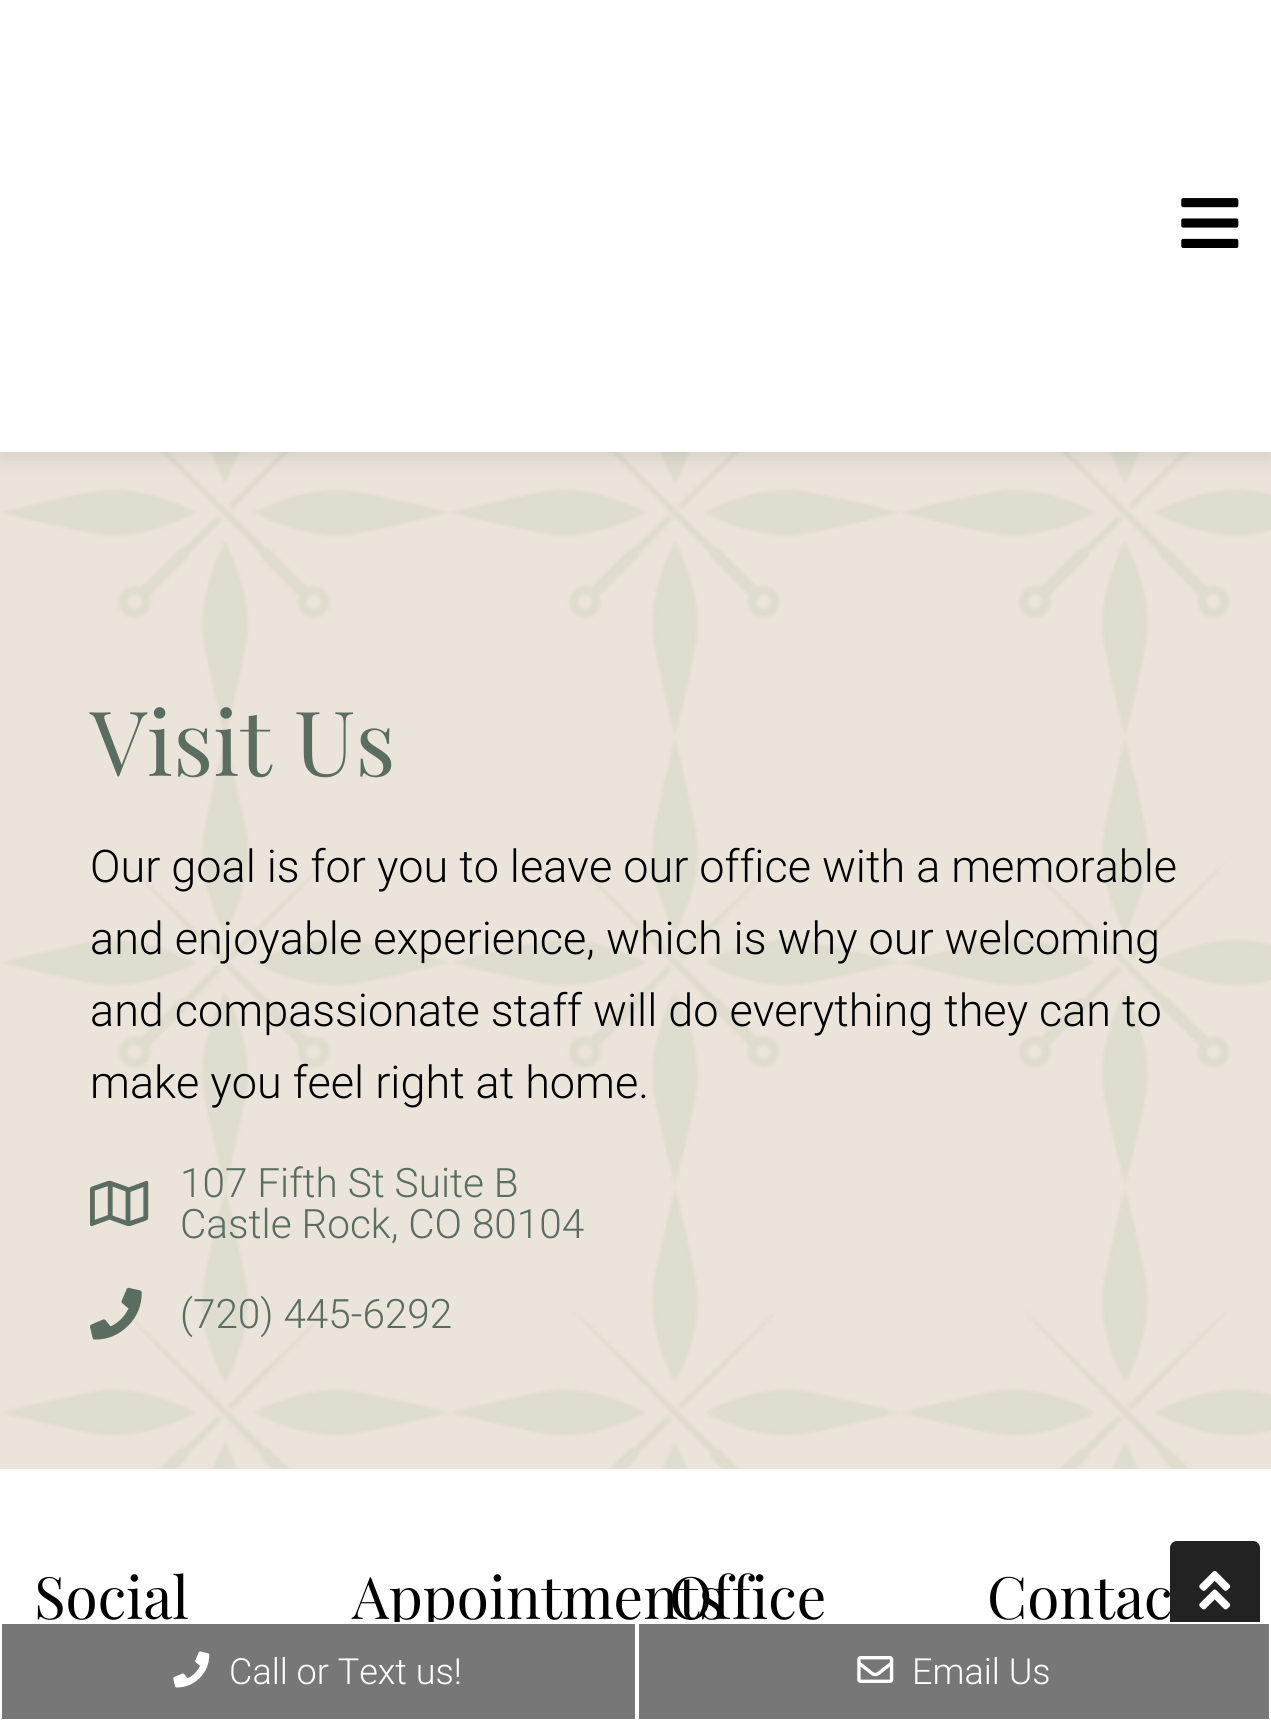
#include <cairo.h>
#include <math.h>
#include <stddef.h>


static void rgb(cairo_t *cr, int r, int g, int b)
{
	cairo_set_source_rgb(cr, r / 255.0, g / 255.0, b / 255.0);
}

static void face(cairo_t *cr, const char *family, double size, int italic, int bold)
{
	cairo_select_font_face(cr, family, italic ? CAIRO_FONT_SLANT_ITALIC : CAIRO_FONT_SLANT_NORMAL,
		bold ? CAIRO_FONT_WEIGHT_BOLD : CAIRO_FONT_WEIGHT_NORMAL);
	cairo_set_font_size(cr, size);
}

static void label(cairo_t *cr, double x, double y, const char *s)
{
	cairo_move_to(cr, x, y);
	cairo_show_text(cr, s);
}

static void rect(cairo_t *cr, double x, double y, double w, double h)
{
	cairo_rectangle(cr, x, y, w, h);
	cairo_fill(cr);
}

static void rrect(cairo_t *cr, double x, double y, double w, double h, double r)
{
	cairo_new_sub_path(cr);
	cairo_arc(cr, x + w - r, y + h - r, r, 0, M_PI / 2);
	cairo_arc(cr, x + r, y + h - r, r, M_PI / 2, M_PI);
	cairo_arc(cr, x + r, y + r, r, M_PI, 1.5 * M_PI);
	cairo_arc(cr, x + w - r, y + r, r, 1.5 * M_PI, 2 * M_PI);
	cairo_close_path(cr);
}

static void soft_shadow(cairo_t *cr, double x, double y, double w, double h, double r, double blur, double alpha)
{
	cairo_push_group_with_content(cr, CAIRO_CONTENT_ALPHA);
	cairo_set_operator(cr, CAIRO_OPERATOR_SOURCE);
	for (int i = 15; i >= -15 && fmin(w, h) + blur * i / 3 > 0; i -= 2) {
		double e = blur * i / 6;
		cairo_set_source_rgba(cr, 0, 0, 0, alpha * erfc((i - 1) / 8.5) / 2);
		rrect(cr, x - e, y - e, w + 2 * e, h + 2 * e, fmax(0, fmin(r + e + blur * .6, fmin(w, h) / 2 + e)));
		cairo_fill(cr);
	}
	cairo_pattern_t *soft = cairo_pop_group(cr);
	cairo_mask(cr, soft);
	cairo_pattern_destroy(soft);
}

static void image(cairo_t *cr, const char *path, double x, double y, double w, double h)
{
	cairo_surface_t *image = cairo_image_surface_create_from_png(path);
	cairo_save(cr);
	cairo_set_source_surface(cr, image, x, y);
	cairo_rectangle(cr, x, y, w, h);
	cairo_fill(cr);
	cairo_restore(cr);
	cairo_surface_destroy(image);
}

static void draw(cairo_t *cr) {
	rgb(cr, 235, 228, 218);
	cairo_paint(cr);
	image(cr, "image1.png", 2, 452, 1269, 1017);
	rgb(cr, 0, 0, 0);
	soft_shadow(cr, 0, 2, 1271, 453, 0, 11, 0.12);
	rgb(cr, 255, 255, 255);
	rect(cr, 0, 0, 1271, 452);
	image(cr, "image0.png", 1181, 198, 58, 50);
	face(cr, "Playfair Display", 90, 0, 0);
	rgb(cr, 91, 109, 97);
	label(cr, 90, 776, "Visit Us");
	face(cr, "Roboto Light", 45, 0, 0);
	rgb(cr, 0, 0, 0);
	label(cr, 90, 882, "Our goal is for you to leave our office with a memorable");
	label(cr, 90, 954, "and enjoyable experience, which is why our welcoming");
	label(cr, 90, 1026, "and compassionate staff will do everything they can to");
	label(cr, 90, 1098, "make you feel right at home.");
	image(cr, "image2.png", 90, 1180, 59, 47);
	face(cr, "Roboto Light", 40.5, 0, 0);
	rgb(cr, 91, 109, 97);
	label(cr, 180, 1197, "107 Fifth St Suite B");
	label(cr, 180, 1238, "Castle Rock, CO 80104");
	image(cr, "image3.png", 90, 1287, 52, 53);
	label(cr, 180, 1328, "(720) 445-6292");
	rgb(cr, 255, 255, 255);
	rect(cr, 0, 1469, 1271, 153);
	face(cr, "Playfair Display", 58.5, 0, 0);
	rgb(cr, 0, 0, 0);
	label(cr, 34, 1619, "Social");
	label(cr, 352, 1619, "Appointments");
	label(cr, 669, 1619, "Office");
	label(cr, 987, 1619, "Contac");
	rgb(cr, 34, 34, 34);
	rrect(cr, 1170, 1541, 90, 90, 7);
	cairo_fill(cr);
	image(cr, "image4.png", 1199, 1571, 32, 39);
	rgb(cr, 119, 119, 119);
	cairo_rectangle(cr, 1, 1623, 635, 97);
	cairo_fill_preserve(cr);
	rgb(cr, 255, 255, 255);
	cairo_stroke(cr);
	image(cr, "image5.png", 173, 1651, 37, 37);
	face(cr, "Roboto Light", 36, 0, 0);
	label(cr, 229, 1684, "Call or Text us!");
	rgb(cr, 119, 119, 119);
	cairo_rectangle(cr, 638, 1623, 632, 97);
	cairo_fill_preserve(cr);
	rgb(cr, 255, 255, 255);
	cairo_stroke(cr);
	image(cr, "image6.png", 857, 1656, 37, 27);
	label(cr, 912, 1684, "Email Us");
}

int main(void) {
	cairo_surface_t *surface = cairo_image_surface_create(CAIRO_FORMAT_RGB24, 1271, 1721);
	cairo_t *cr = cairo_create(surface);
	cairo_font_options_t *options = cairo_font_options_create();
	cairo_font_options_set_hint_metrics(options, CAIRO_HINT_METRICS_OFF);
	cairo_font_options_set_hint_style(options, CAIRO_HINT_STYLE_NONE);
	cairo_set_font_options(cr, options);
	cairo_set_miter_limit(cr, 4);
	draw(cr);
	cairo_surface_write_to_png(surface, "render.png");
	cairo_font_options_destroy(options);
	cairo_destroy(cr);
	cairo_surface_destroy(surface);
	return 0;
}
